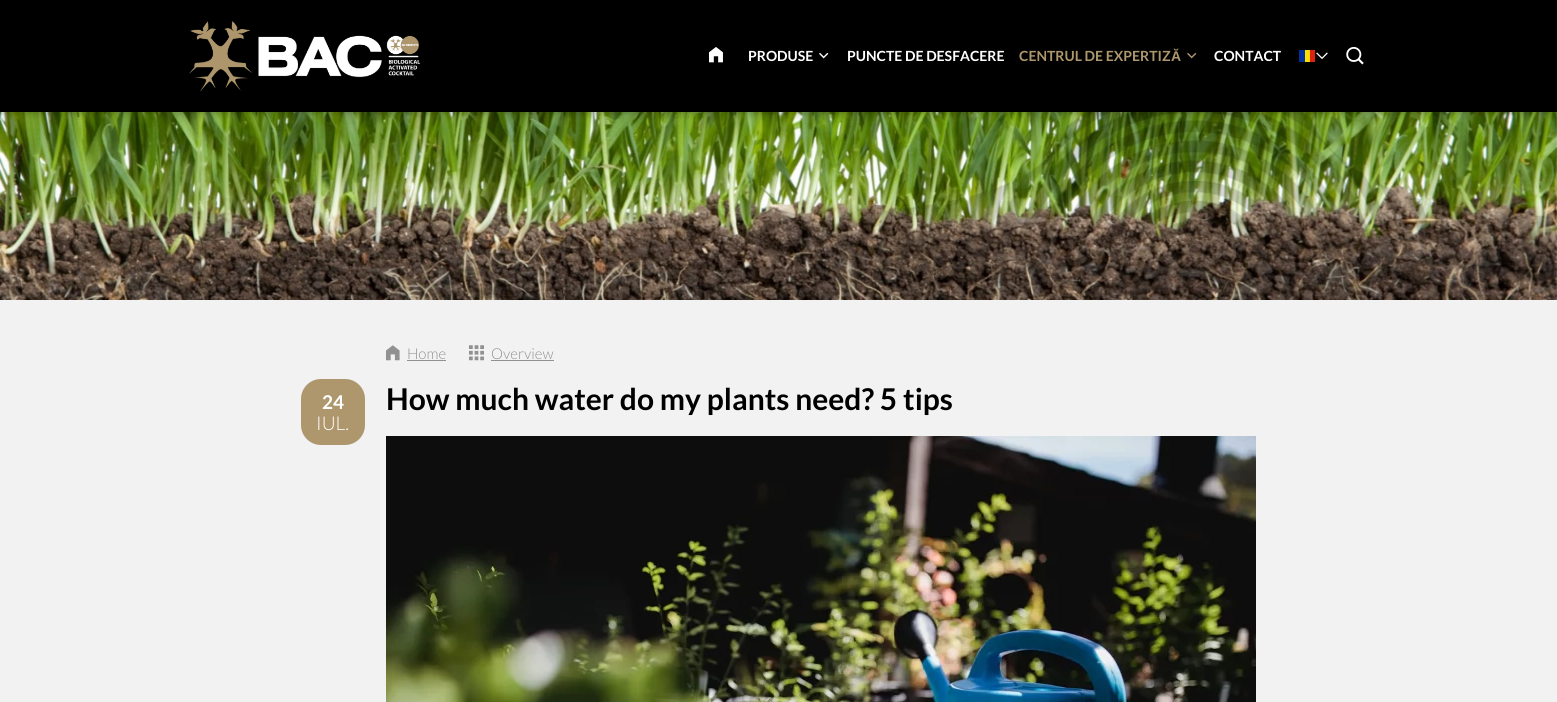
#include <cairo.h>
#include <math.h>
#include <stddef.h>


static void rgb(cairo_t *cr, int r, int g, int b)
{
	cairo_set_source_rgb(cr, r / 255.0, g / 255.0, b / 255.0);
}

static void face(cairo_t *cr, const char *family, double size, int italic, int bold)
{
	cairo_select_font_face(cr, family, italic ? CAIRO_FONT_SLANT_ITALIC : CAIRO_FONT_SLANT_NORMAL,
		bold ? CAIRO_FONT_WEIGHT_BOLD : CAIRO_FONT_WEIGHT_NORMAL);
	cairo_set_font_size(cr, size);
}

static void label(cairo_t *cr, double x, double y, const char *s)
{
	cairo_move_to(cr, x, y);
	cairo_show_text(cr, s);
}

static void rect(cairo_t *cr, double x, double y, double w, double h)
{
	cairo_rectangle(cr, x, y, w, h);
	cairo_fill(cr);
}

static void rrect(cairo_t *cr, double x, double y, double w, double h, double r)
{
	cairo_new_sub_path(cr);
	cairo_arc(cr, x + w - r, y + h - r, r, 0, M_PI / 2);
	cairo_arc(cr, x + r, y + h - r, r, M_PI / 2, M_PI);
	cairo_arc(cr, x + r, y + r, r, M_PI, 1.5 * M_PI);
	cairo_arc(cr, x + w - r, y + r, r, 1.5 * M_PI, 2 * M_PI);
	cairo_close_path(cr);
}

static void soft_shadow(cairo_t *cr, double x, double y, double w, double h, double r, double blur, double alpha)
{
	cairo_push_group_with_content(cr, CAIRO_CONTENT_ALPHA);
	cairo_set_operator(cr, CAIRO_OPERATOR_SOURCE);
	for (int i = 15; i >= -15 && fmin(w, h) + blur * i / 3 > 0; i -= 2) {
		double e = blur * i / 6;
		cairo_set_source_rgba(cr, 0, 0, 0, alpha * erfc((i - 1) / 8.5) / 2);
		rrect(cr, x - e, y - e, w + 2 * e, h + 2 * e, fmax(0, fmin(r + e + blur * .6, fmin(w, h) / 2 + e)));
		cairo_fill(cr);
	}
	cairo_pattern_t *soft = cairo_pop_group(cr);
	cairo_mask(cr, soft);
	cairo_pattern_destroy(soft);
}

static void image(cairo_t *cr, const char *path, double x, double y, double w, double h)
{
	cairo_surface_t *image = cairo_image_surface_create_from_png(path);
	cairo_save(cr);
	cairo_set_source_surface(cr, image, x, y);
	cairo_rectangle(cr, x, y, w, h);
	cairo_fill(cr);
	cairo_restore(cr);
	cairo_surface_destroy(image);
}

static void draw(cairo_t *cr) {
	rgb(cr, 242, 242, 242);
	cairo_paint(cr);
	image(cr, "image6.png", 0, 112, 1557, 188);
	rgb(cr, 0, 0, 0);
	soft_shadow(cr, 0, 1, 1557, 112, 0, 4, 0.3);
	rgb(cr, 0, 0, 0);
	rect(cr, 0, 0, 1557, 112);
	image(cr, "image0.png", 189, 21, 231, 70);
	image(cr, "image1.png", 709, 47, 14, 16);
	face(cr, "Lato", 14, 0, 1);
	rgb(cr, 255, 255, 255);
	label(cr, 748, 61, "PRODUSE");
	image(cr, "image2.png", 819, 52, 10, 7);
	label(cr, 847, 61, "PUNCTE DE DESFACERE");
	rgb(cr, 174, 151, 109);
	label(cr, 1019, 61, "CENTRUL DE EXPERTIZ");
	face(cr, "Liberation Sans", 14, 0, 1);
	label(cr, 1171, 61, "Ă");
	image(cr, "image3.png", 1187, 52, 10, 7);
	face(cr, "Lato", 14, 0, 1);
	rgb(cr, 255, 255, 255);
	label(cr, 1214, 61, "CONTACT");
	rgb(cr, 0, 49, 156);
	rect(cr, 1299, 50, 6, 12);
	rgb(cr, 255, 222, 0);
	rect(cr, 1305, 50, 5, 12);
	rgb(cr, 222, 33, 16);
	rect(cr, 1310, 50, 5, 12);
	image(cr, "image4.png", 1316, 52, 12, 7);
	image(cr, "image5.png", 1346, 46, 18, 19);
	image(cr, "image7.png", 386, 345, 14, 16);
	face(cr, "Lato Light", 15, 0, 0);
	rgb(cr, 145, 145, 145);
	label(cr, 407, 359, "Home");
	rect(cr, 407, 360, 39, 1);
	image(cr, "image8.png", 469, 345, 15, 16);
	label(cr, 491, 359, "Overview");
	rect(cr, 491, 360, 63, 1);
	rgb(cr, 174, 151, 109);
	rrect(cr, 301, 379, 64, 66, 20);
	cairo_fill(cr);
	face(cr, "Lato", 19, 0, 1);
	rgb(cr, 255, 255, 255);
	label(cr, 322, 409, "24");
	face(cr, "Lato Light", 19, 0, 0);
	label(cr, 316, 430, "IUL.");
	face(cr, "Lato", 30, 0, 1);
	rgb(cr, 0, 0, 0);
	label(cr, 386, 410, "How much water do my plants need? 5 tips");
	image(cr, "image9.png", 386, 436, 870, 266);
}

int main(void) {
	cairo_surface_t *surface = cairo_image_surface_create(CAIRO_FORMAT_RGB24, 1557, 702);
	cairo_t *cr = cairo_create(surface);
	cairo_font_options_t *options = cairo_font_options_create();
	cairo_font_options_set_hint_metrics(options, CAIRO_HINT_METRICS_OFF);
	cairo_font_options_set_hint_style(options, CAIRO_HINT_STYLE_NONE);
	cairo_set_font_options(cr, options);
	cairo_set_miter_limit(cr, 4);
	draw(cr);
	cairo_surface_write_to_png(surface, "render.png");
	cairo_font_options_destroy(options);
	cairo_destroy(cr);
	cairo_surface_destroy(surface);
	return 0;
}
